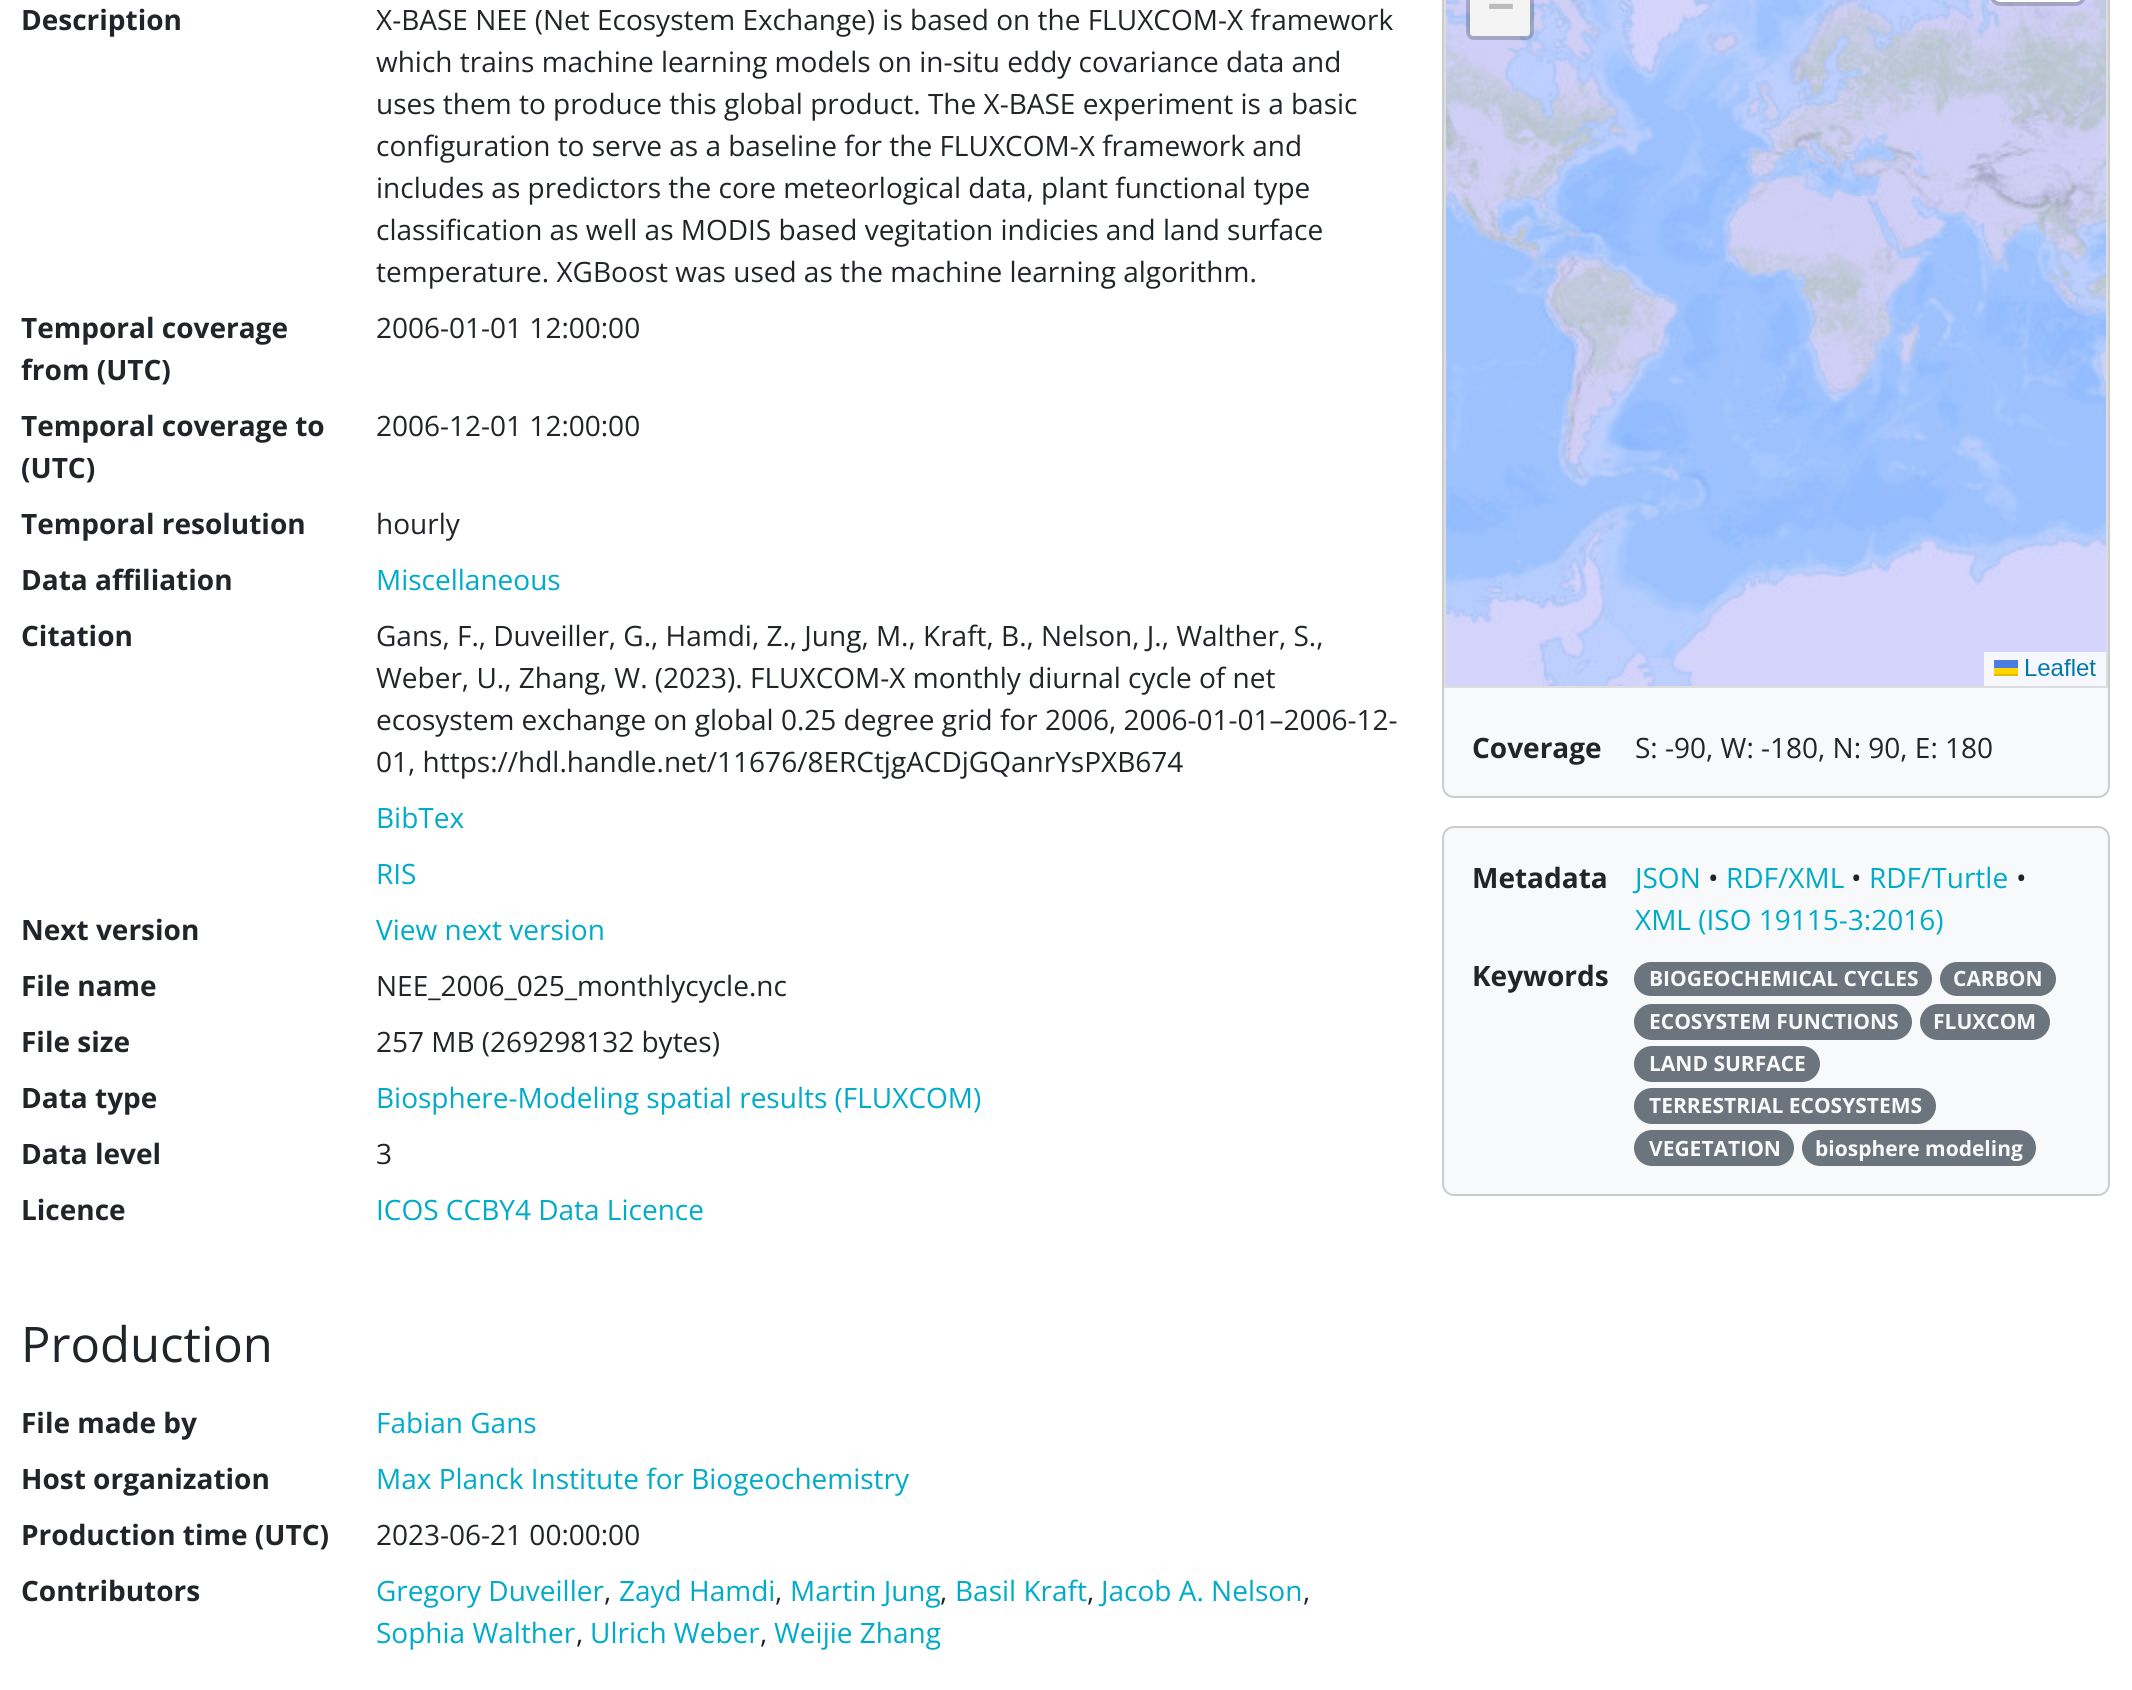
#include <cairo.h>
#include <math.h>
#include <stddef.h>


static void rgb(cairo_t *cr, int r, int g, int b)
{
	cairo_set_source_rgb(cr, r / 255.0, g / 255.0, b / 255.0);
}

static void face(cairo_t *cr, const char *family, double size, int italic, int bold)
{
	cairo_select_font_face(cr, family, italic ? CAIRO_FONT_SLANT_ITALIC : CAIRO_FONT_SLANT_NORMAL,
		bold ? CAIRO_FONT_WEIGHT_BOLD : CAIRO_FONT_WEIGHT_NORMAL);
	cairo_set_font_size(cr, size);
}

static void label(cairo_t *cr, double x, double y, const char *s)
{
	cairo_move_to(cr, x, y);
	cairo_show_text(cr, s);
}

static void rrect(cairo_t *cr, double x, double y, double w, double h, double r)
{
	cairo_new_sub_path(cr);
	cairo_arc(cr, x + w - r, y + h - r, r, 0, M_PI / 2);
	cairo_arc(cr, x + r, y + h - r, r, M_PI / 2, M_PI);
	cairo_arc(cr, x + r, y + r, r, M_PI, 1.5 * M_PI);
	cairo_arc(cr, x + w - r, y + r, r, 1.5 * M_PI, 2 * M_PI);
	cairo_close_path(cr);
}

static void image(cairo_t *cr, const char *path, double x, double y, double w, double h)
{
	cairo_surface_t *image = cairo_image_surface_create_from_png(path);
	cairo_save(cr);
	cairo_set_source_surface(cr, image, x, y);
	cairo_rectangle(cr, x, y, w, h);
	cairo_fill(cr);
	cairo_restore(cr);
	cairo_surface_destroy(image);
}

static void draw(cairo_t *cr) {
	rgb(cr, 255, 255, 255);
	cairo_paint(cr);
	face(cr, "Open Sans", 28, 0, 1);
	rgb(cr, 33, 37, 41);
	label(cr, 21, 30, "Description");
	face(cr, "Open Sans", 28, 0, 0);
	label(cr, 376, 30, "X-BASE NEE (Net Ecosystem Exchange) is based on the FLUXCOM-X framework");
	label(cr, 376, 72, "which trains machine learning models on in-situ eddy covariance data and");
	label(cr, 376, 114, "uses them to produce this global product. The X-BASE experiment is a basic");
	label(cr, 376, 156, "configuration to serve as a baseline for the FLUXCOM-X framework and");
	label(cr, 376, 198, "includes as predictors the core meteorlogical data, plant functional type");
	label(cr, 376, 240, "classification as well as MODIS based vegitation indicies and land surface");
	label(cr, 376, 282, "temperature. XGBoost was used as the machine learning algorithm.");
	face(cr, "Open Sans", 28, 0, 1);
	label(cr, 21, 338, "Temporal coverage");
	label(cr, 21, 380, "from (UTC)");
	face(cr, "Open Sans", 28, 0, 0);
	label(cr, 376, 338, "2006-01-01 12:00:00");
	face(cr, "Open Sans", 28, 0, 1);
	label(cr, 21, 436, "Temporal coverage to");
	label(cr, 21, 478, "(UTC)");
	face(cr, "Open Sans", 28, 0, 0);
	label(cr, 376, 436, "2006-12-01 12:00:00");
	face(cr, "Open Sans", 28, 0, 1);
	label(cr, 21, 534, "Temporal resolution");
	face(cr, "Open Sans", 28, 0, 0);
	label(cr, 376, 534, "hourly");
	face(cr, "Open Sans", 28, 0, 1);
	label(cr, 21, 590, "Data affiliation");
	face(cr, "Open Sans", 28, 0, 0);
	rgb(cr, 0, 171, 201);
	label(cr, 376, 590, "Miscellaneous");
	face(cr, "Open Sans", 28, 0, 1);
	rgb(cr, 33, 37, 41);
	label(cr, 21, 646, "Citation");
	face(cr, "Open Sans", 28, 0, 0);
	label(cr, 376, 646, "Gans, F., Duveiller, G., Hamdi, Z., Jung, M., Kraft, B., Nelson, J., Walther, S.,");
	label(cr, 376, 688, "Weber, U., Zhang, W. (2023). FLUXCOM-X monthly diurnal cycle of net");
	label(cr, 376, 730, "ecosystem exchange on global 0.25 degree grid for 2006, 2006-01-01–2006-12-");
	label(cr, 376, 772, "01, https://hdl.handle.net/11676/8ERCtjgACDjGQanrYsPXB674");
	rgb(cr, 0, 171, 201);
	label(cr, 376, 828, "BibTex");
	label(cr, 376, 884, "RIS");
	face(cr, "Open Sans", 28, 0, 1);
	rgb(cr, 33, 37, 41);
	label(cr, 21, 940, "Next version");
	face(cr, "Open Sans", 28, 0, 0);
	rgb(cr, 0, 171, 201);
	label(cr, 376, 940, "View next version");
	face(cr, "Open Sans", 28, 0, 1);
	rgb(cr, 33, 37, 41);
	label(cr, 21, 996, "File name");
	face(cr, "Open Sans", 28, 0, 0);
	label(cr, 376, 996, "NEE_2006_025_monthlycycle.nc");
	face(cr, "Open Sans", 28, 0, 1);
	label(cr, 21, 1052, "File size");
	face(cr, "Open Sans", 28, 0, 0);
	label(cr, 376, 1052, "257 MB (269298132 bytes)");
	face(cr, "Open Sans", 28, 0, 1);
	label(cr, 21, 1108, "Data type");
	face(cr, "Open Sans", 28, 0, 0);
	rgb(cr, 0, 171, 201);
	label(cr, 376, 1108, "Biosphere-Modeling spatial results (FLUXCOM)");
	face(cr, "Open Sans", 28, 0, 1);
	rgb(cr, 33, 37, 41);
	label(cr, 21, 1164, "Data level");
	face(cr, "Open Sans", 28, 0, 0);
	label(cr, 376, 1164, "3");
	face(cr, "Open Sans", 28, 0, 1);
	label(cr, 21, 1220, "Licence");
	face(cr, "Open Sans", 28, 0, 0);
	rgb(cr, 0, 171, 201);
	label(cr, 376, 1220, "ICOS CCBY4 Data Licence");
	face(cr, "Open Sans", 49, 0, 0);
	rgb(cr, 33, 37, 41);
	label(cr, 21, 1362, "Production");
	face(cr, "Open Sans", 28, 0, 1);
	label(cr, 21, 1433, "File made by");
	face(cr, "Open Sans", 28, 0, 0);
	rgb(cr, 0, 171, 201);
	label(cr, 376, 1433, "Fabian Gans");
	face(cr, "Open Sans", 28, 0, 1);
	rgb(cr, 33, 37, 41);
	label(cr, 21, 1489, "Host organization");
	face(cr, "Open Sans", 28, 0, 0);
	rgb(cr, 0, 171, 201);
	label(cr, 376, 1489, "Max Planck Institute for Biogeochemistry");
	face(cr, "Open Sans", 28, 0, 1);
	rgb(cr, 33, 37, 41);
	label(cr, 21, 1545, "Production time (UTC)");
	face(cr, "Open Sans", 28, 0, 0);
	label(cr, 376, 1545, "2023-06-21 00:00:00");
	face(cr, "Open Sans", 28, 0, 1);
	label(cr, 21, 1601, "Contributors");
	face(cr, "Open Sans", 28, 0, 0);
	rgb(cr, 0, 171, 201);
	label(cr, 376, 1601, "Gregory Duveiller");
	rgb(cr, 33, 37, 41);
	label(cr, 604, 1601, ",");
	rgb(cr, 0, 171, 201);
	label(cr, 619, 1601, "Zayd Hamdi");
	rgb(cr, 33, 37, 41);
	label(cr, 775, 1601, ",");
	rgb(cr, 0, 171, 201);
	label(cr, 790, 1601, "Martin Jung");
	rgb(cr, 33, 37, 41);
	label(cr, 940, 1601, ",");
	rgb(cr, 0, 171, 201);
	label(cr, 955, 1601, "Basil Kraft");
	rgb(cr, 33, 37, 41);
	label(cr, 1087, 1601, ",");
	rgb(cr, 0, 171, 201);
	label(cr, 1101, 1601, "Jacob A. Nelson");
	rgb(cr, 33, 37, 41);
	label(cr, 1303, 1601, ",");
	rgb(cr, 0, 171, 201);
	label(cr, 376, 1643, "Sophia Walther");
	rgb(cr, 33, 37, 41);
	label(cr, 576, 1643, ",");
	rgb(cr, 0, 171, 201);
	label(cr, 590, 1643, "Ulrich Weber");
	rgb(cr, 33, 37, 41);
	label(cr, 760, 1643, ",");
	rgb(cr, 0, 171, 201);
	label(cr, 774, 1643, "Weijie Zhang");
	rgb(cr, 248, 249, 250);
	rrect(cr, 1442, -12, 668, 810, 12);
	cairo_fill(cr);
	rrect(cr, 1443, -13, 666, 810, 11);
	cairo_set_source_rgba(cr, 0, 0, 0, 0.18);
	cairo_stroke(cr);
	cairo_rectangle(cr, 1445, -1, 662, 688);
	rgb(cr, 221, 221, 221);
	cairo_stroke(cr);
	image(cr, "image0.png", 1446, 0, 660, 686);
	face(cr, "Open Sans", 28, 0, 1);
	rgb(cr, 33, 37, 41);
	label(cr, 1472, 758, "Coverage");
	face(cr, "Open Sans", 28, 0, 0);
	label(cr, 1635, 758, "S: -90, W: -180, N: 90, E: 180");
	rgb(cr, 248, 249, 250);
	rrect(cr, 1442, 826, 668, 370, 12);
	cairo_fill(cr);
	rrect(cr, 1443, 827, 666, 368, 11);
	cairo_set_source_rgba(cr, 0, 0, 0, 0.18);
	cairo_stroke(cr);
	face(cr, "Open Sans", 28, 0, 1);
	rgb(cr, 33, 37, 41);
	label(cr, 1472, 888, "Metadata");
	face(cr, "Open Sans", 28, 0, 0);
	rgb(cr, 0, 171, 201);
	label(cr, 1635, 888, "JSON");
	rgb(cr, 33, 37, 41);
	label(cr, 1708, 888, "•");
	rgb(cr, 0, 171, 201);
	label(cr, 1726, 888, "RDF/XML");
	rgb(cr, 33, 37, 41);
	label(cr, 1851, 888, "•");
	rgb(cr, 0, 171, 201);
	label(cr, 1869, 888, "RDF/Turtle");
	rgb(cr, 33, 37, 41);
	label(cr, 2016, 888, "•");
	rgb(cr, 0, 171, 201);
	label(cr, 1635, 930, "XML (ISO 19115-3:2016)");
	face(cr, "Open Sans", 28, 0, 1);
	rgb(cr, 33, 37, 41);
	label(cr, 1472, 986, "Keywords");
	rgb(cr, 108, 117, 125);
	rrect(cr, 1634, 962, 298, 34, 17);
	cairo_fill(cr);
	face(cr, "Open Sans", 21, 0, 1);
	rgb(cr, 248, 249, 250);
	label(cr, 1649, 986, "BIOGEOCHEMICAL CYCLES");
	rgb(cr, 108, 117, 125);
	rrect(cr, 1940, 962, 116, 34, 17);
	cairo_fill(cr);
	rgb(cr, 248, 249, 250);
	label(cr, 1953, 986, "CARBON");
	rgb(cr, 108, 117, 125);
	rrect(cr, 1634, 1004, 278, 36, 18);
	cairo_fill(cr);
	rgb(cr, 248, 249, 250);
	label(cr, 1649, 1029, "ECOSYSTEM FUNCTIONS");
	rgb(cr, 108, 117, 125);
	rrect(cr, 1920, 1004, 130, 36, 18);
	cairo_fill(cr);
	rgb(cr, 248, 249, 250);
	label(cr, 1933, 1029, "FLUXCOM");
	rgb(cr, 108, 117, 125);
	rrect(cr, 1634, 1046, 186, 36, 18);
	cairo_fill(cr);
	rgb(cr, 248, 249, 250);
	label(cr, 1649, 1071, "LAND SURFACE");
	rgb(cr, 108, 117, 125);
	rrect(cr, 1634, 1088, 302, 36, 18);
	cairo_fill(cr);
	rgb(cr, 248, 249, 250);
	label(cr, 1649, 1113, "TERRESTRIAL ECOSYSTEMS");
	rgb(cr, 108, 117, 125);
	rrect(cr, 1634, 1130, 160, 36, 18);
	cairo_fill(cr);
	rgb(cr, 248, 249, 250);
	label(cr, 1649, 1156, "VEGETATION");
	rgb(cr, 108, 117, 125);
	rrect(cr, 1802, 1130, 234, 36, 18);
	cairo_fill(cr);
	rgb(cr, 248, 249, 250);
	label(cr, 1815, 1156, "biosphere modeling");
}

int main(void) {
	cairo_surface_t *surface = cairo_image_surface_create(CAIRO_FORMAT_RGB24, 2132, 1690);
	cairo_t *cr = cairo_create(surface);
	cairo_font_options_t *options = cairo_font_options_create();
	cairo_font_options_set_hint_metrics(options, CAIRO_HINT_METRICS_OFF);
	cairo_font_options_set_hint_style(options, CAIRO_HINT_STYLE_NONE);
	cairo_set_font_options(cr, options);
	cairo_set_miter_limit(cr, 4);
	draw(cr);
	cairo_surface_write_to_png(surface, "render.png");
	cairo_font_options_destroy(options);
	cairo_destroy(cr);
	cairo_surface_destroy(surface);
	return 0;
}
